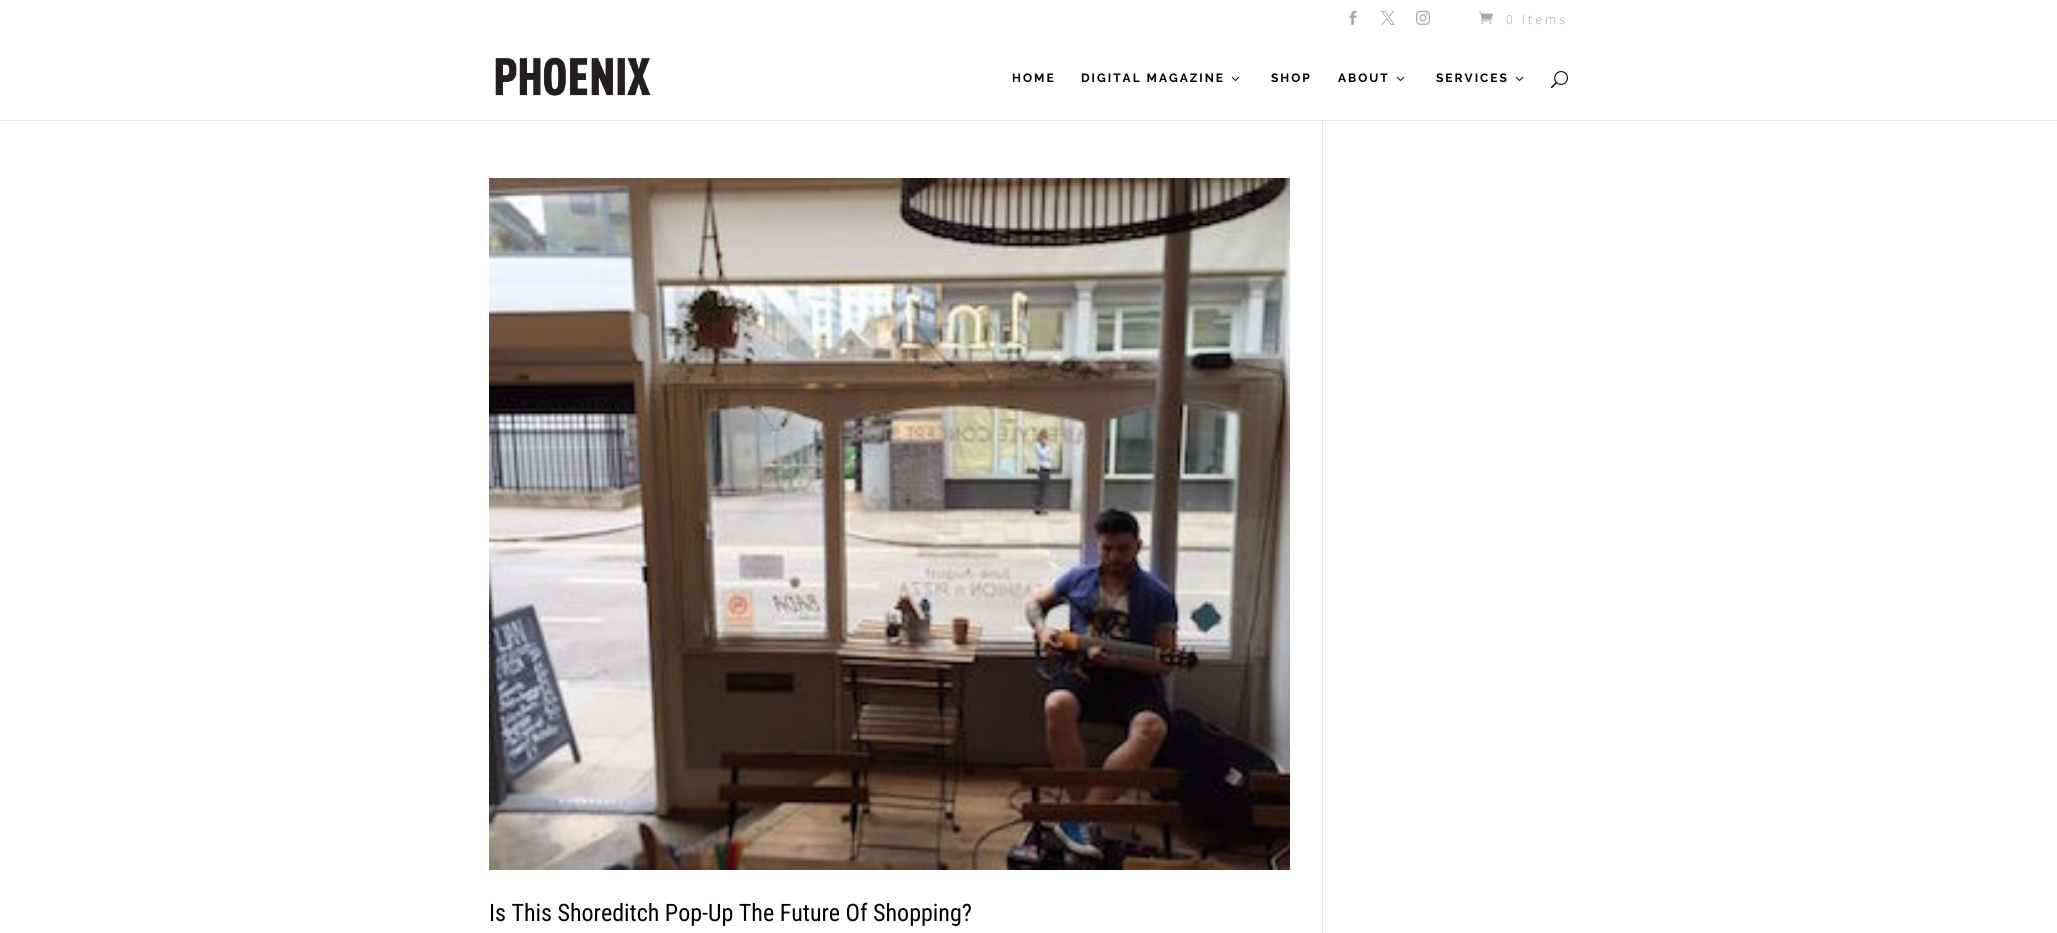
#include <cairo.h>
#include <math.h>
#include <stddef.h>


static void rgb(cairo_t *cr, int r, int g, int b)
{
	cairo_set_source_rgb(cr, r / 255.0, g / 255.0, b / 255.0);
}

static void face(cairo_t *cr, const char *family, double size, int italic, int bold)
{
	cairo_select_font_face(cr, family, italic ? CAIRO_FONT_SLANT_ITALIC : CAIRO_FONT_SLANT_NORMAL,
		bold ? CAIRO_FONT_WEIGHT_BOLD : CAIRO_FONT_WEIGHT_NORMAL);
	cairo_set_font_size(cr, size);
}

static void label(cairo_t *cr, double x, double y, const char *s)
{
	cairo_move_to(cr, x, y);
	cairo_show_text(cr, s);
}

static void tracked(cairo_t *cr, double x, double y, const char *s, double letter, double word)
{
	cairo_move_to(cr, x, y);
	while (*s) {
		char ch[5] = {0};
		int n = 0;
		do ch[n++] = *s++; while ((*s & 0xC0) == 0x80);
		cairo_show_text(cr, ch);
		cairo_rel_move_to(cr, letter + word * (*ch == ' '), 0);
	}
}

static void rect(cairo_t *cr, double x, double y, double w, double h)
{
	cairo_rectangle(cr, x, y, w, h);
	cairo_fill(cr);
}

static void image(cairo_t *cr, const char *path, double x, double y, double w, double h)
{
	cairo_surface_t *image = cairo_image_surface_create_from_png(path);
	cairo_save(cr);
	cairo_set_source_surface(cr, image, x, y);
	cairo_rectangle(cr, x, y, w, h);
	cairo_fill(cr);
	cairo_restore(cr);
	cairo_surface_destroy(image);
}

static void draw(cairo_t *cr) {
	rgb(cr, 255, 255, 255);
	cairo_paint(cr);
	rgb(cr, 230, 230, 230);
	rect(cr, 0, 120, 2057, 1);
	image(cr, "image0.png", 1349, 10, 8, 15);
	image(cr, "image1.png", 1381, 10, 14, 15);
	image(cr, "image2.png", 1416, 10, 14, 15);
	image(cr, "image3.png", 1479, 11, 14, 13);
	face(cr, "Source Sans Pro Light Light", 14, 0, 0);
	rgb(cr, 168, 168, 168);
	tracked(cr, 1506, 24, "0 Items", 3, 0);
	image(cr, "image4.png", 495, 57, 156, 39);
	face(cr, "Raleway", 12, 0, 1);
	rgb(cr, 0, 0, 0);
	tracked(cr, 1012, 82, "HOME", 2, 0);
	tracked(cr, 1081, 82, "DIGITAL MAGAZINE", 2, 0);
	image(cr, "image5.png", 1231, 76, 9, 5);
	tracked(cr, 1271, 82, "SHOP", 2, 0);
	tracked(cr, 1338, 82, "ABOUT", 2, 0);
	image(cr, "image5.png", 1396, 76, 9, 5);
	tracked(cr, 1436, 82, "SERVICES", 2, 0);
	image(cr, "image5.png", 1515, 76, 9, 5);
	image(cr, "image6.png", 1551, 71, 17, 18);
	image(cr, "image7.png", 489, 178, 801, 692);
	face(cr, "Roboto Condensed", 24, 0, 0);
	label(cr, 489, 921, "Is This Shoreditch Pop-Up The Future Of Shopping?");
	rgb(cr, 226, 226, 226);
	rect(cr, 1322, 120, 1, 813);
	rgb(cr, 203, 203, 203);
	rect(cr, 1322, 120, 1, 1);
}

int main(void) {
	cairo_surface_t *surface = cairo_image_surface_create(CAIRO_FORMAT_RGB24, 2057, 933);
	cairo_t *cr = cairo_create(surface);
	cairo_font_options_t *options = cairo_font_options_create();
	cairo_font_options_set_hint_metrics(options, CAIRO_HINT_METRICS_OFF);
	cairo_font_options_set_hint_style(options, CAIRO_HINT_STYLE_NONE);
	cairo_set_font_options(cr, options);
	cairo_set_miter_limit(cr, 4);
	draw(cr);
	cairo_surface_write_to_png(surface, "render.png");
	cairo_font_options_destroy(options);
	cairo_destroy(cr);
	cairo_surface_destroy(surface);
	return 0;
}
